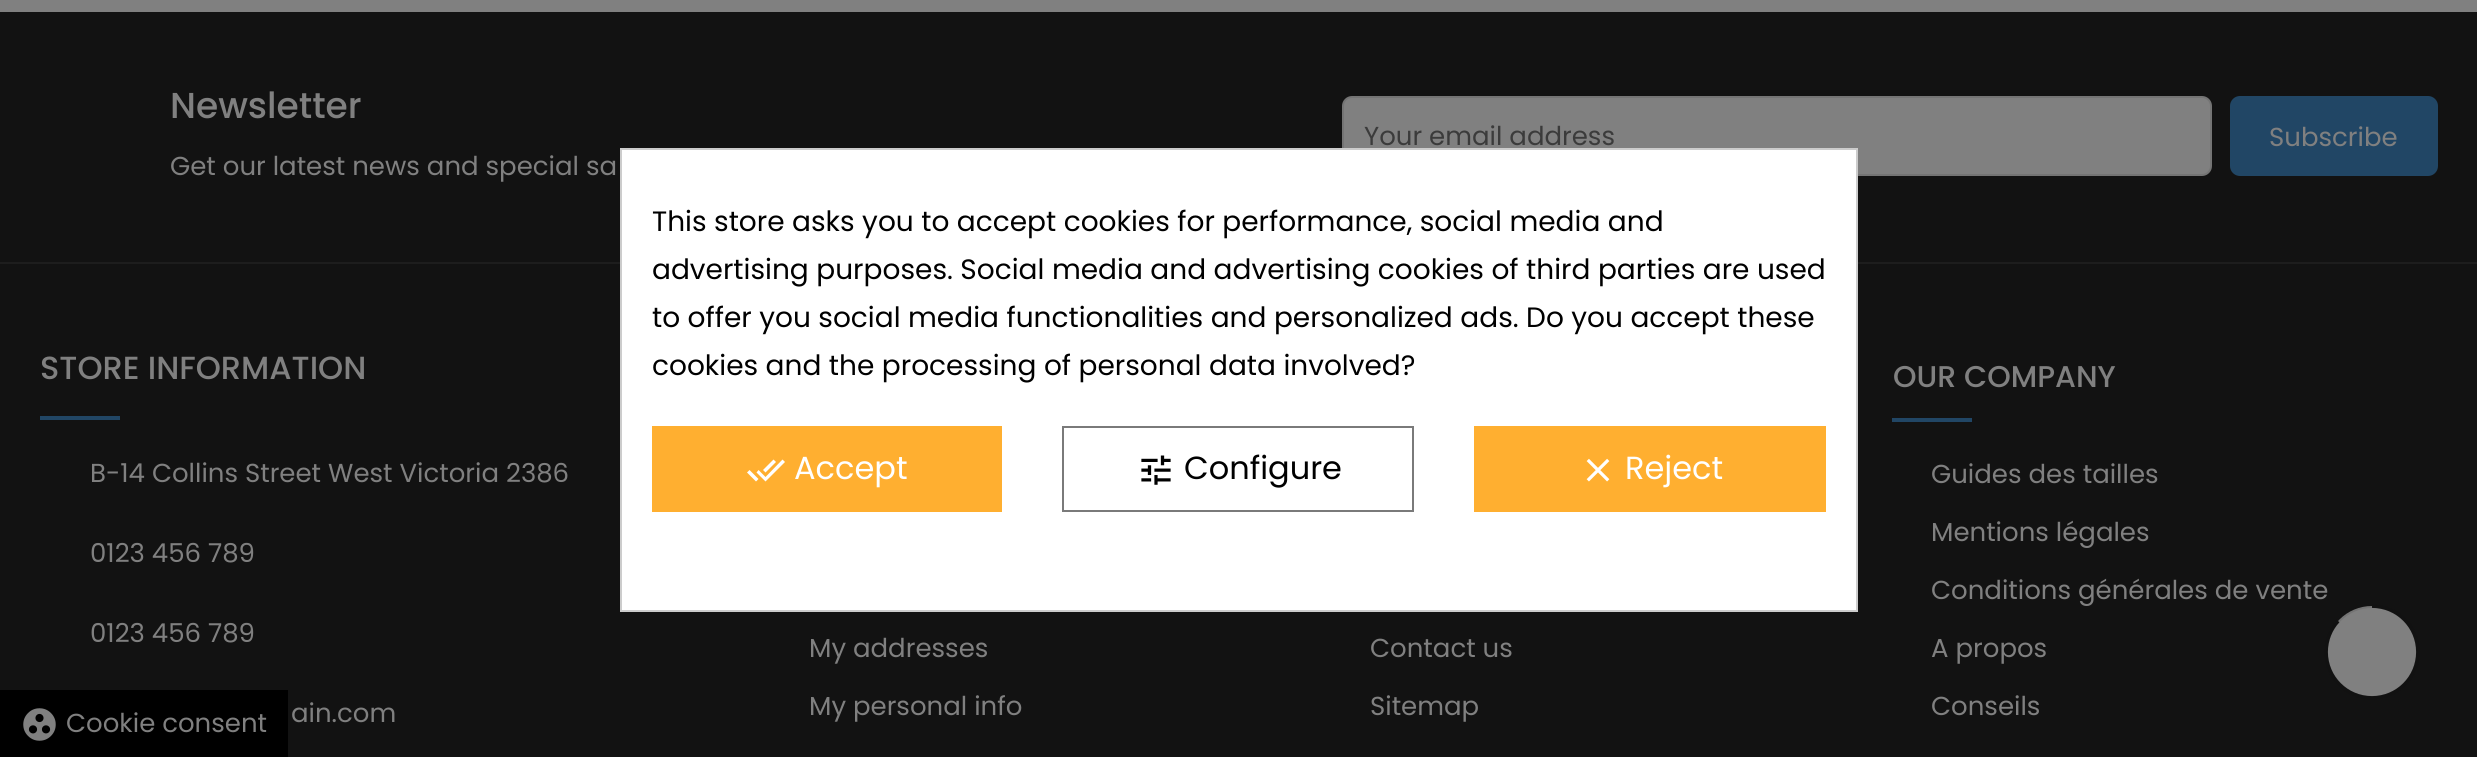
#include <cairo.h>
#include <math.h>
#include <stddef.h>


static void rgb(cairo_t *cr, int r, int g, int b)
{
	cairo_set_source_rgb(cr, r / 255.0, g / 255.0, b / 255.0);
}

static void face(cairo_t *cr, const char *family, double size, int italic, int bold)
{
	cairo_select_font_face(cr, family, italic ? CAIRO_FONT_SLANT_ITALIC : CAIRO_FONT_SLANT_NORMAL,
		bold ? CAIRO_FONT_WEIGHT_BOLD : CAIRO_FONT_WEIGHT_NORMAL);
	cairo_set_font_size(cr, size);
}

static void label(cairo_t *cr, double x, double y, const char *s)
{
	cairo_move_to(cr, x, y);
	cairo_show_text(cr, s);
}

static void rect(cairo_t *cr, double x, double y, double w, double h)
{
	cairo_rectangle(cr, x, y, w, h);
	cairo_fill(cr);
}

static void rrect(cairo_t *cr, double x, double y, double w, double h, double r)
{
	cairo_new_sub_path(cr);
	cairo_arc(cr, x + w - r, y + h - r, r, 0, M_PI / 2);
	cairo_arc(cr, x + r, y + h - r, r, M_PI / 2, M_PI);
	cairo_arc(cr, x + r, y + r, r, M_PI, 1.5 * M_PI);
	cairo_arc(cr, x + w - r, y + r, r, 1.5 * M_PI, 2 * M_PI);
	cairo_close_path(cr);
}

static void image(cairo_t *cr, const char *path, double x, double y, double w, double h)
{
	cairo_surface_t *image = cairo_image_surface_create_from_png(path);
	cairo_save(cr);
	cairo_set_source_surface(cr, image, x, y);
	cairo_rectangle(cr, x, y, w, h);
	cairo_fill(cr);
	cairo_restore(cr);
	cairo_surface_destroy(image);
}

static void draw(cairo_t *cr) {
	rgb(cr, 128, 128, 128);
	cairo_paint(cr);
	rgb(cr, 18, 18, 18);
	rect(cr, 0, 12, 2477, 250);
	rgb(cr, 29, 29, 29);
	rect(cr, 0, 262, 2477, 2);
	face(cr, "Poppins Medium", 36, 0, 0);
	rgb(cr, 128, 128, 128);
	label(cr, 170, 118, "Newsletter");
	face(cr, "Poppins", 26, 0, 0);
	label(cr, 170, 175, "Get our latest news and special sa");
	rrect(cr, 1343, 97, 868, 78, 9);
	cairo_fill_preserve(cr);
	rgb(cr, 116, 116, 116);
	cairo_stroke(cr);
	rgb(cr, 59, 59, 59);
	label(cr, 1364, 145, "Your email address");
	rgb(cr, 33, 70, 101);
	rrect(cr, 2230, 96, 208, 80, 10);
	cairo_fill(cr);
	rgb(cr, 128, 128, 128);
	label(cr, 2269, 146, "Subscribe");
	rgb(cr, 18, 18, 18);
	rect(cr, 0, 264, 2477, 493);
	face(cr, "Poppins Medium", 32, 0, 0);
	rgb(cr, 128, 128, 128);
	label(cr, 40, 379, "STORE INFORMATION");
	rgb(cr, 33, 70, 101);
	rect(cr, 40, 416, 80, 4);
	face(cr, "Poppins", 26, 0, 0);
	rgb(cr, 128, 128, 128);
	label(cr, 90, 482, "B-14 Collins Street West Victoria 2386");
	label(cr, 90, 562, "0123 456 789");
	label(cr, 90, 642, "0123 456 789");
	label(cr, 291, 722, "ain.com");
	label(cr, 809, 657, "My addresses");
	label(cr, 809, 715, "My personal info");
	label(cr, 1370, 657, "Contact us");
	label(cr, 1370, 715, "Sitemap");
	face(cr, "Poppins Medium", 30, 0, 0);
	label(cr, 1893, 387, "OUR COMPANY");
	rgb(cr, 33, 70, 101);
	rect(cr, 1892, 418, 80, 4);
	face(cr, "Poppins", 26, 0, 0);
	rgb(cr, 128, 128, 128);
	label(cr, 1931, 483, "Guides des tailles");
	label(cr, 1931, 541, "Mentions légales");
	label(cr, 1931, 599, "Conditions générales de vente");
	label(cr, 1931, 657, "A propos");
	label(cr, 1931, 715, "Conseils");
	rgb(cr, 255, 255, 255);
	cairo_rectangle(cr, 621, 149, 1236, 462);
	cairo_fill_preserve(cr);
	rgb(cr, 204, 204, 204);
	cairo_stroke(cr);
	face(cr, "Poppins", 28, 0, 0);
	rgb(cr, 0, 0, 0);
	label(cr, 652, 231, "This store asks you to accept cookies for performance, social media and");
	label(cr, 652, 279, "advertising purposes. Social media and advertising cookies of third parties are used");
	label(cr, 652, 327, "to offer you social media functionalities and personalized ads. Do you accept these");
	label(cr, 652, 375, "cookies and the processing of personal data involved?");
	rgb(cr, 255, 175, 48);
	rect(cr, 652, 426, 350, 86);
	rgb(cr, 255, 255, 255);
	cairo_new_path(cr);
	cairo_move_to(cr, 747, 472.5);
	cairo_line_to(cr, 749.5, 470);
	cairo_line_to(cr, 758.5, 479);
	cairo_line_to(cr, 756, 481.5);
	cairo_close_path(cr);
	cairo_move_to(cr, 782.5, 459.5);
	cairo_line_to(cr, 785, 462);
	cairo_line_to(cr, 765.5, 481.5);
	cairo_line_to(cr, 756.5, 472.5);
	cairo_line_to(cr, 758.5, 470);
	cairo_line_to(cr, 765.5, 477);
	cairo_close_path(cr);
	cairo_move_to(cr, 776, 462);
	cairo_line_to(cr, 765.5, 472.5);
	cairo_line_to(cr, 763, 470);
	cairo_line_to(cr, 773.5, 459.5);
	cairo_close_path(cr);
	cairo_fill(cr);
	face(cr, "Poppins", 32, 0, 0);
	label(cr, 794, 479, "Accept");
	cairo_rectangle(cr, 1063, 427, 350, 84);
	rgb(cr, 122, 122, 122);
	cairo_stroke(cr);
	image(cr, "image0.png", 1141, 455, 30, 30);
	rgb(cr, 0, 0, 0);
	label(cr, 1184, 479, "Configure");
	rgb(cr, 255, 175, 48);
	rect(cr, 1474, 426, 352, 86);
	image(cr, "image1.png", 1586, 458, 24, 24);
	rgb(cr, 255, 255, 255);
	label(cr, 1625, 479, "Reject");
	rgb(cr, 128, 128, 128);
	cairo_new_path(cr);
	cairo_arc(cr, 2372, 652, 45, 0, 2 * M_PI);
	cairo_fill_preserve(cr);
	rgb(cr, 116, 116, 116);
	cairo_stroke(cr);
	cairo_new_path(cr);
	cairo_move_to(cr, 2372, 606);
	cairo_curve_to(cr, 2397.5, 606, 2418, 626.5, 2418, 652);
	cairo_curve_to(cr, 2418, 677.5, 2397.5, 698, 2372, 698);
	cairo_curve_to(cr, 2346.5, 698, 2326, 677.5, 2326, 652);
	cairo_curve_to(cr, 2326, 640, 2330.5, 629, 2338, 621);
	rgb(cr, 17, 17, 17);
	cairo_set_line_width(cr, 3.8);
	cairo_stroke(cr);
	rgb(cr, 0, 0, 0);
	rect(cr, 0, 690, 288, 67);
	image(cr, "image2.png", 23, 708, 33, 33);
	face(cr, "Poppins", 26, 0, 0);
	rgb(cr, 128, 128, 128);
	label(cr, 66, 732, "Cookie consent");
}

int main(void) {
	cairo_surface_t *surface = cairo_image_surface_create(CAIRO_FORMAT_RGB24, 2477, 757);
	cairo_t *cr = cairo_create(surface);
	cairo_font_options_t *options = cairo_font_options_create();
	cairo_font_options_set_hint_metrics(options, CAIRO_HINT_METRICS_OFF);
	cairo_font_options_set_hint_style(options, CAIRO_HINT_STYLE_NONE);
	cairo_set_font_options(cr, options);
	cairo_set_miter_limit(cr, 4);
	draw(cr);
	cairo_surface_write_to_png(surface, "render.png");
	cairo_font_options_destroy(options);
	cairo_destroy(cr);
	cairo_surface_destroy(surface);
	return 0;
}
